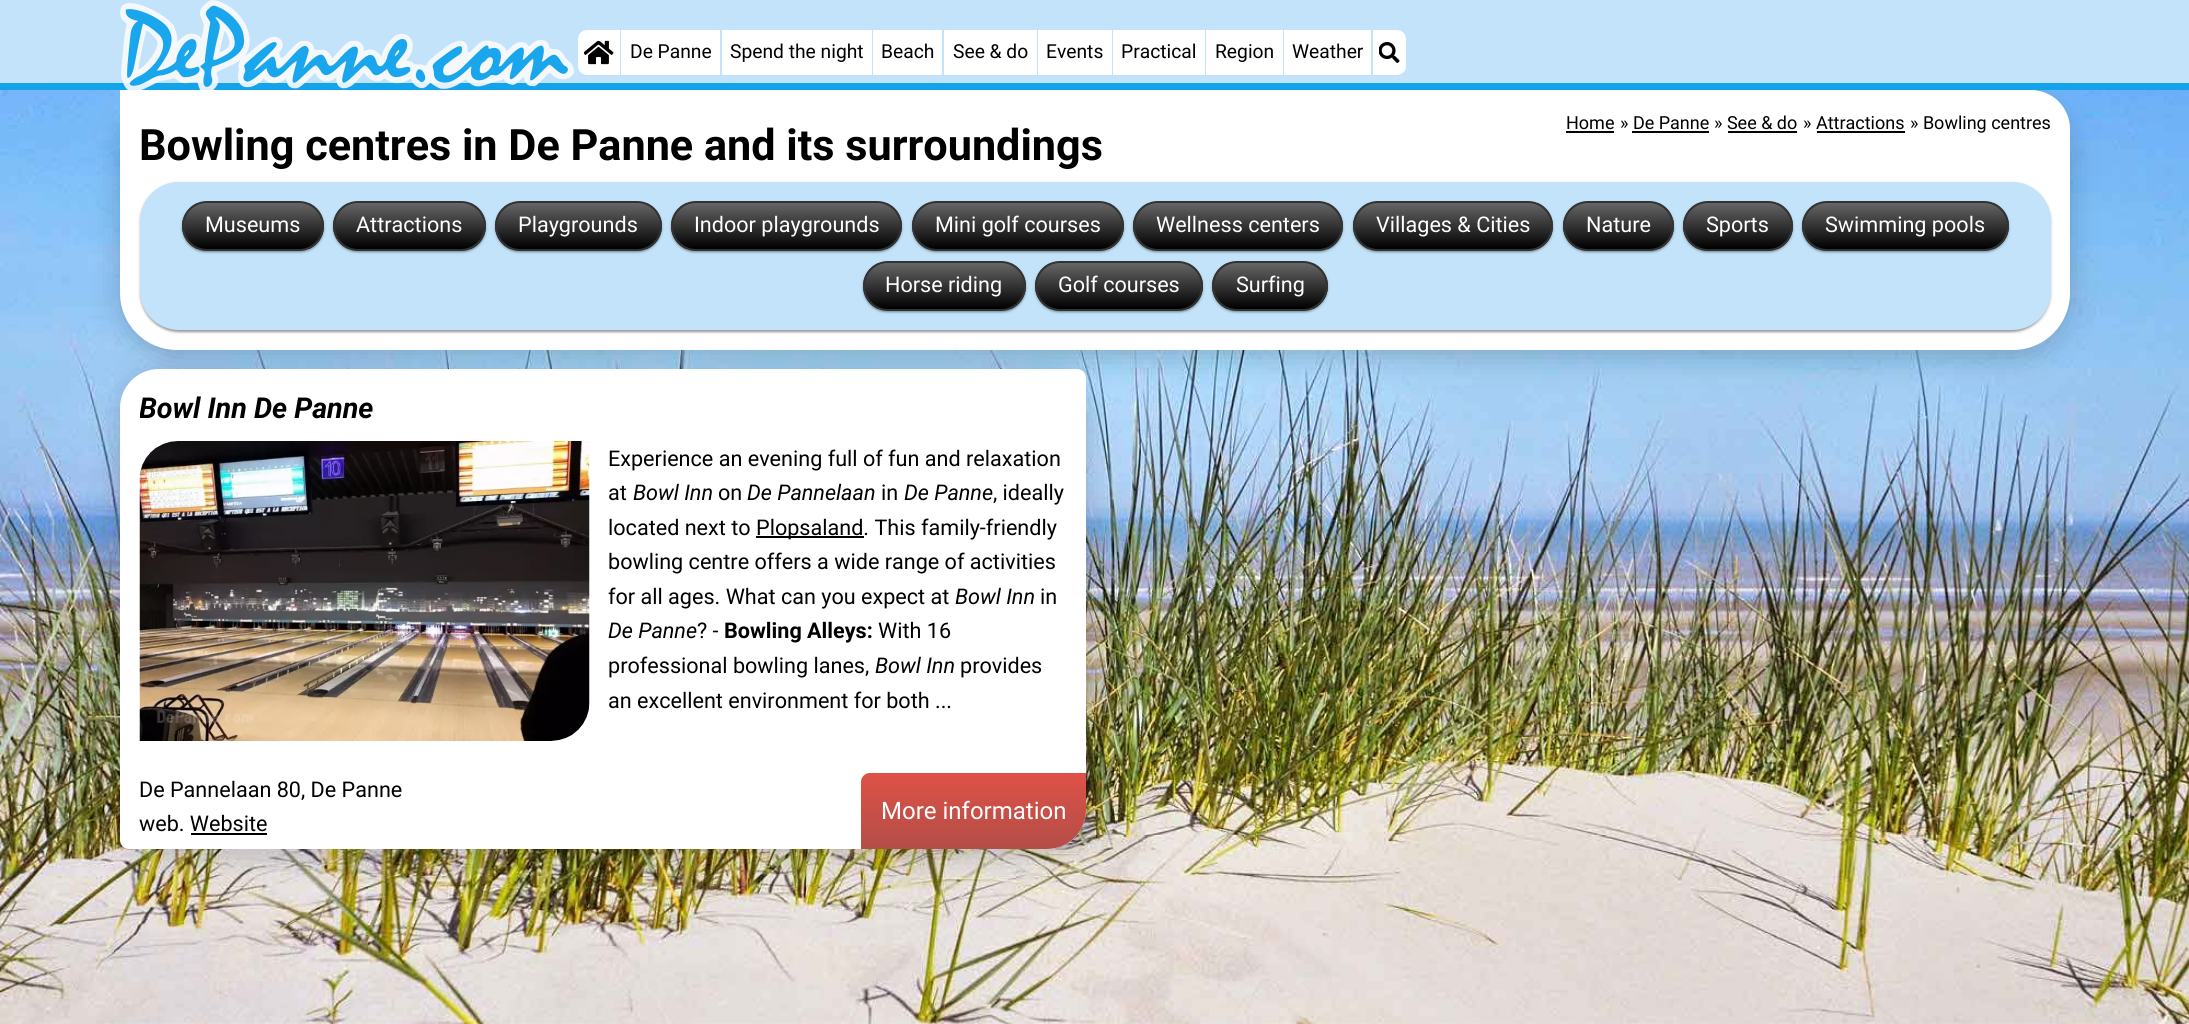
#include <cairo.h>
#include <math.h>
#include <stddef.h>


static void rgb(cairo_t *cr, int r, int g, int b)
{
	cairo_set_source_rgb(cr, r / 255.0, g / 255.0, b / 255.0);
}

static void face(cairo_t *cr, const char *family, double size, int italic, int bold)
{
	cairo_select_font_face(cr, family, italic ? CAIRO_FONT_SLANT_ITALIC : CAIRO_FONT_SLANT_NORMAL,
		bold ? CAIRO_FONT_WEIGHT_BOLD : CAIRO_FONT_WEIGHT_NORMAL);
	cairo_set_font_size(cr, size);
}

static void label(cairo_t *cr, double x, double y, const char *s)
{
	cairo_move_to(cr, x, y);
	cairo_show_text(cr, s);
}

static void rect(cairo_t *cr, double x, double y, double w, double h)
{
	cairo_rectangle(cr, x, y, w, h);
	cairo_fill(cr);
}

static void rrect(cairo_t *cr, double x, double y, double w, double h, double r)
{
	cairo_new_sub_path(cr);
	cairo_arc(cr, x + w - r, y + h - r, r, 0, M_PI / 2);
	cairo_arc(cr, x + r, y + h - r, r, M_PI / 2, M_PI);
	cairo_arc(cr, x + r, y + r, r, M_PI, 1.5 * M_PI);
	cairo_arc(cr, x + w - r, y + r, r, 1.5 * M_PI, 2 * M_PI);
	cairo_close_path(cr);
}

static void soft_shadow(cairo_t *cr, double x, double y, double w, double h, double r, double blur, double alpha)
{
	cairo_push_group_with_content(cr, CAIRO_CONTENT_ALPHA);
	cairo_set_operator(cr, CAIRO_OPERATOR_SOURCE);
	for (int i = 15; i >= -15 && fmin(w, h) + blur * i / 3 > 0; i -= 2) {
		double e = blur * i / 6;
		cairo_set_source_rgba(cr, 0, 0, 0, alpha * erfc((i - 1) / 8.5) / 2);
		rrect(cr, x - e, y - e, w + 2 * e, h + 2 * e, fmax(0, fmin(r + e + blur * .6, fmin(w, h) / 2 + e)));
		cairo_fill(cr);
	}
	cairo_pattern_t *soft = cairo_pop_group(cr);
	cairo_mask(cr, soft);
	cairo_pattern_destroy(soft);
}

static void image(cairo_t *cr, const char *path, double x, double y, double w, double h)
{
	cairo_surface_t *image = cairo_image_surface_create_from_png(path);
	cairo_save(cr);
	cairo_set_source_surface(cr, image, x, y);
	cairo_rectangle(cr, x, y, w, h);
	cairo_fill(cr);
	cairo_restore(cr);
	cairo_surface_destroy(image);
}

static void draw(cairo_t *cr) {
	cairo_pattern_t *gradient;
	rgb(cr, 255, 255, 255);
	cairo_paint(cr);
	image(cr, "image3.png", 0, 90, 2189, 934);
	rgb(cr, 0, 0, 0);
	soft_shadow(cr, 120, 98, 1950, 259, 57, 15, 0.2);
	rgb(cr, 194, 227, 249);
	rect(cr, 0, 0, 2189, 83);
	rgb(cr, 18, 163, 235);
	rect(cr, 0, 83, 2189, 7);
	rgb(cr, 255, 255, 255);
	cairo_new_path(cr);
	cairo_move_to(cr, 120, 90);
	cairo_line_to(cr, 2031, 90);
	cairo_curve_to(cr, 2052.5, 90, 2070, 107.5, 2070, 129);
	cairo_line_to(cr, 2070, 293);
	cairo_curve_to(cr, 2070, 324.5, 2044.5, 350, 2013, 350);
	cairo_line_to(cr, 177, 350);
	cairo_curve_to(cr, 145.5, 350, 120, 324.5, 120, 293);
	cairo_close_path(cr);
	cairo_fill(cr);
	image(cr, "image0.png", 120, 0, 455, 92);
	cairo_new_path(cr);
	cairo_move_to(cr, 587, 30);
	cairo_line_to(cr, 620, 30);
	cairo_line_to(cr, 620, 75);
	cairo_line_to(cr, 587, 75);
	cairo_curve_to(cr, 582, 75, 578, 71, 578, 66);
	cairo_line_to(cr, 578, 39);
	cairo_curve_to(cr, 578, 34, 582, 30, 587, 30);
	cairo_close_path(cr);
	cairo_fill(cr);
	image(cr, "image1.png", 584, 40, 30, 25);
	rect(cr, 621, 30, 99, 45);
	face(cr, "Roboto", 19.25, 0, 0);
	rgb(cr, 0, 0, 0);
	label(cr, 630, 58, "De Panne");
	rgb(cr, 255, 255, 255);
	rect(cr, 722, 30, 150, 45);
	rgb(cr, 0, 0, 0);
	label(cr, 730, 58, "Spend the night");
	rgb(cr, 255, 255, 255);
	rect(cr, 873, 30, 69, 45);
	rgb(cr, 0, 0, 0);
	label(cr, 881, 58, "Beach");
	rgb(cr, 255, 255, 255);
	rect(cr, 944, 30, 93, 45);
	rgb(cr, 0, 0, 0);
	label(cr, 953, 58, "See & do");
	rgb(cr, 255, 255, 255);
	rect(cr, 1038, 30, 74, 45);
	rgb(cr, 0, 0, 0);
	label(cr, 1046, 58, "Events");
	rgb(cr, 255, 255, 255);
	rect(cr, 1113, 30, 92, 45);
	rgb(cr, 0, 0, 0);
	label(cr, 1121, 58, "Practical");
	rgb(cr, 255, 255, 255);
	rect(cr, 1206, 30, 77, 45);
	rgb(cr, 0, 0, 0);
	label(cr, 1215, 58, "Region");
	rgb(cr, 255, 255, 255);
	rect(cr, 1284, 30, 87, 45);
	rgb(cr, 0, 0, 0);
	label(cr, 1292, 58, "Weather");
	rgb(cr, 255, 255, 255);
	cairo_new_path(cr);
	cairo_move_to(cr, 1373, 30);
	cairo_line_to(cr, 1397, 30);
	cairo_curve_to(cr, 1402, 30, 1406, 34, 1406, 39);
	cairo_line_to(cr, 1406, 66);
	cairo_curve_to(cr, 1406, 71, 1402, 75, 1397, 75);
	cairo_line_to(cr, 1373, 75);
	cairo_close_path(cr);
	cairo_fill(cr);
	image(cr, "image2.png", 1379, 42, 21, 21);
	face(cr, "Roboto", 18, 0, 0);
	rgb(cr, 0, 0, 0);
	label(cr, 1566, 129, "Home");
	rect(cr, 1566, 131, 48, 2);
	label(cr, 1620, 129, "» De Panne");
	rect(cr, 1632, 131, 77, 2);
	label(cr, 1714, 129, "» See & do");
	rect(cr, 1728, 131, 69, 2);
	label(cr, 1803, 129, "» Attractions");
	rect(cr, 1817, 131, 88, 2);
	label(cr, 1910, 129, "» Bowling centres");
	face(cr, "Roboto", 43.2, 0, 1);
	label(cr, 139, 160, "Bowling centres in De Panne and its surroundings");
	rgb(cr, 0, 0, 0);
	soft_shadow(cr, 140, 183, 1911, 149, 39, 2, 0.12);
	soft_shadow(cr, 140, 183, 1911, 149, 39, 1, 0.14);
	soft_shadow(cr, 141, 186, 1908, 146, 38, 1, 0.2);
	rgb(cr, 194, 227, 249);
	rrect(cr, 140, 182, 1911, 148, 39);
	cairo_fill(cr);
	rgb(cr, 0, 0, 0);
	soft_shadow(cr, 182, 203, 142, 49, 24.5, 2, 0.12);
	soft_shadow(cr, 182, 203, 142, 49, 24.5, 1, 0.14);
	soft_shadow(cr, 183, 206, 140, 46, 23, 1, 0.2);
	cairo_save(cr);
	rrect(cr, 182, 201, 142, 50, 25);
	cairo_clip(cr);
	gradient = cairo_pattern_create_linear(253, 203, 253, 249);
	cairo_pattern_add_color_stop_rgba(gradient, 0, 0.4, 0.4, 0.4, 1);
	cairo_pattern_add_color_stop_rgba(gradient, 1, 0, 0, 0, 1);
	cairo_set_source(cr, gradient);
	cairo_pattern_destroy(gradient);
	rect(cr, 182, 203, 142, 46);
	cairo_restore(cr);
	rrect(cr, 183, 202, 140, 48, 24);
	rgb(cr, 51, 51, 51);
	cairo_stroke(cr);
	face(cr, "Roboto", 21.6, 0, 0);
	rgb(cr, 255, 255, 255);
	label(cr, 205, 232, "Museums");
	rgb(cr, 0, 0, 0);
	soft_shadow(cr, 333, 203, 153, 49, 24.5, 2, 0.12);
	soft_shadow(cr, 333, 203, 153, 49, 24.5, 1, 0.14);
	soft_shadow(cr, 335, 206, 150, 46, 23, 1, 0.2);
	cairo_save(cr);
	rrect(cr, 333, 201, 153, 50, 25);
	cairo_clip(cr);
	gradient = cairo_pattern_create_linear(410, 203, 410, 249);
	cairo_pattern_add_color_stop_rgba(gradient, 0, 0.4, 0.4, 0.4, 1);
	cairo_pattern_add_color_stop_rgba(gradient, 1, 0, 0, 0, 1);
	cairo_set_source(cr, gradient);
	cairo_pattern_destroy(gradient);
	rect(cr, 333, 203, 153, 46);
	cairo_restore(cr);
	rrect(cr, 334, 202, 151, 48, 24);
	rgb(cr, 51, 51, 51);
	cairo_stroke(cr);
	rgb(cr, 255, 255, 255);
	label(cr, 356, 232, "Attractions");
	rgb(cr, 0, 0, 0);
	soft_shadow(cr, 495, 203, 167, 49, 24.5, 2, 0.12);
	soft_shadow(cr, 495, 203, 167, 49, 24.5, 1, 0.14);
	soft_shadow(cr, 497, 206, 163, 46, 23, 1, 0.2);
	cairo_save(cr);
	rrect(cr, 495, 201, 167, 50, 25);
	cairo_clip(cr);
	gradient = cairo_pattern_create_linear(578, 203, 578, 249);
	cairo_pattern_add_color_stop_rgba(gradient, 0, 0.4, 0.4, 0.4, 1);
	cairo_pattern_add_color_stop_rgba(gradient, 1, 0, 0, 0, 1);
	cairo_set_source(cr, gradient);
	cairo_pattern_destroy(gradient);
	rect(cr, 495, 203, 167, 46);
	cairo_restore(cr);
	rrect(cr, 496, 202, 165, 48, 24);
	rgb(cr, 51, 51, 51);
	cairo_stroke(cr);
	rgb(cr, 255, 255, 255);
	label(cr, 518, 232, "Playgrounds");
	rgb(cr, 0, 0, 0);
	soft_shadow(cr, 671, 203, 231, 49, 24.5, 2, 0.12);
	soft_shadow(cr, 671, 203, 231, 49, 24.5, 1, 0.14);
	soft_shadow(cr, 672, 206, 228, 46, 23, 1, 0.2);
	cairo_save(cr);
	rrect(cr, 671, 201, 231, 50, 25);
	cairo_clip(cr);
	gradient = cairo_pattern_create_linear(786, 203, 786, 249);
	cairo_pattern_add_color_stop_rgba(gradient, 0, 0.4, 0.4, 0.4, 1);
	cairo_pattern_add_color_stop_rgba(gradient, 1, 0, 0, 0, 1);
	cairo_set_source(cr, gradient);
	cairo_pattern_destroy(gradient);
	rect(cr, 671, 203, 231, 46);
	cairo_restore(cr);
	rrect(cr, 672, 202, 229, 48, 24);
	rgb(cr, 51, 51, 51);
	cairo_stroke(cr);
	rgb(cr, 255, 255, 255);
	label(cr, 694, 232, "Indoor playgrounds");
	rgb(cr, 0, 0, 0);
	soft_shadow(cr, 912, 203, 212, 49, 24.5, 2, 0.12);
	soft_shadow(cr, 912, 203, 212, 49, 24.5, 1, 0.14);
	soft_shadow(cr, 914, 206, 208, 46, 23, 1, 0.2);
	cairo_save(cr);
	rrect(cr, 912, 201, 212, 50, 25);
	cairo_clip(cr);
	gradient = cairo_pattern_create_linear(1018, 203, 1018, 249);
	cairo_pattern_add_color_stop_rgba(gradient, 0, 0.4, 0.4, 0.4, 1);
	cairo_pattern_add_color_stop_rgba(gradient, 1, 0, 0, 0, 1);
	cairo_set_source(cr, gradient);
	cairo_pattern_destroy(gradient);
	rect(cr, 912, 203, 212, 46);
	cairo_restore(cr);
	rrect(cr, 913, 202, 210, 48, 24);
	rgb(cr, 51, 51, 51);
	cairo_stroke(cr);
	rgb(cr, 255, 255, 255);
	label(cr, 935, 232, "Mini golf courses");
	rgb(cr, 0, 0, 0);
	soft_shadow(cr, 1133, 203, 210, 49, 24.5, 2, 0.12);
	soft_shadow(cr, 1133, 203, 210, 49, 24.5, 1, 0.14);
	soft_shadow(cr, 1134, 206, 207, 46, 23, 1, 0.2);
	cairo_save(cr);
	rrect(cr, 1133, 201, 210, 50, 25);
	cairo_clip(cr);
	gradient = cairo_pattern_create_linear(1238, 203, 1238, 249);
	cairo_pattern_add_color_stop_rgba(gradient, 0, 0.4, 0.4, 0.4, 1);
	cairo_pattern_add_color_stop_rgba(gradient, 1, 0, 0, 0, 1);
	cairo_set_source(cr, gradient);
	cairo_pattern_destroy(gradient);
	rect(cr, 1133, 203, 210, 46);
	cairo_restore(cr);
	rrect(cr, 1134, 202, 208, 48, 24);
	rgb(cr, 51, 51, 51);
	cairo_stroke(cr);
	rgb(cr, 255, 255, 255);
	label(cr, 1156, 232, "Wellness centers");
	rgb(cr, 0, 0, 0);
	soft_shadow(cr, 1353, 203, 200, 49, 24.5, 2, 0.12);
	soft_shadow(cr, 1353, 203, 200, 49, 24.5, 1, 0.14);
	soft_shadow(cr, 1355, 206, 196, 46, 23, 1, 0.2);
	cairo_save(cr);
	rrect(cr, 1353, 201, 200, 50, 25);
	cairo_clip(cr);
	gradient = cairo_pattern_create_linear(1453, 203, 1453, 249);
	cairo_pattern_add_color_stop_rgba(gradient, 0, 0.4, 0.4, 0.4, 1);
	cairo_pattern_add_color_stop_rgba(gradient, 1, 0, 0, 0, 1);
	cairo_set_source(cr, gradient);
	cairo_pattern_destroy(gradient);
	rect(cr, 1353, 203, 200, 46);
	cairo_restore(cr);
	rrect(cr, 1354, 202, 198, 48, 24);
	rgb(cr, 51, 51, 51);
	cairo_stroke(cr);
	rgb(cr, 255, 255, 255);
	label(cr, 1376, 232, "Villages & Cities");
	rgb(cr, 0, 0, 0);
	soft_shadow(cr, 1563, 203, 111, 49, 24.5, 2, 0.12);
	soft_shadow(cr, 1563, 203, 111, 49, 24.5, 1, 0.14);
	soft_shadow(cr, 1565, 206, 108, 46, 23, 1, 0.2);
	cairo_save(cr);
	rrect(cr, 1563, 201, 111, 50, 25);
	cairo_clip(cr);
	gradient = cairo_pattern_create_linear(1619, 203, 1619, 249);
	cairo_pattern_add_color_stop_rgba(gradient, 0, 0.4, 0.4, 0.4, 1);
	cairo_pattern_add_color_stop_rgba(gradient, 1, 0, 0, 0, 1);
	cairo_set_source(cr, gradient);
	cairo_pattern_destroy(gradient);
	rect(cr, 1563, 203, 111, 46);
	cairo_restore(cr);
	rrect(cr, 1564, 202, 109, 48, 24);
	rgb(cr, 51, 51, 51);
	cairo_stroke(cr);
	rgb(cr, 255, 255, 255);
	label(cr, 1586, 232, "Nature");
	rgb(cr, 0, 0, 0);
	soft_shadow(cr, 1683, 203, 110, 49, 24.5, 2, 0.12);
	soft_shadow(cr, 1683, 203, 110, 49, 24.5, 1, 0.14);
	soft_shadow(cr, 1685, 206, 106, 46, 23, 1, 0.2);
	cairo_save(cr);
	rrect(cr, 1683, 201, 110, 50, 25);
	cairo_clip(cr);
	gradient = cairo_pattern_create_linear(1738, 203, 1738, 249);
	cairo_pattern_add_color_stop_rgba(gradient, 0, 0.4, 0.4, 0.4, 1);
	cairo_pattern_add_color_stop_rgba(gradient, 1, 0, 0, 0, 1);
	cairo_set_source(cr, gradient);
	cairo_pattern_destroy(gradient);
	rect(cr, 1683, 203, 110, 46);
	cairo_restore(cr);
	rrect(cr, 1684, 202, 108, 48, 24);
	rgb(cr, 51, 51, 51);
	cairo_stroke(cr);
	rgb(cr, 255, 255, 255);
	label(cr, 1706, 232, "Sports");
	rgb(cr, 0, 0, 0);
	soft_shadow(cr, 1802, 203, 207, 49, 24.5, 2, 0.12);
	soft_shadow(cr, 1802, 203, 207, 49, 24.5, 1, 0.14);
	soft_shadow(cr, 1803, 206, 204, 46, 23, 1, 0.2);
	cairo_save(cr);
	rrect(cr, 1802, 201, 207, 50, 25);
	cairo_clip(cr);
	gradient = cairo_pattern_create_linear(1905, 203, 1905, 249);
	cairo_pattern_add_color_stop_rgba(gradient, 0, 0.4, 0.4, 0.4, 1);
	cairo_pattern_add_color_stop_rgba(gradient, 1, 0, 0, 0, 1);
	cairo_set_source(cr, gradient);
	cairo_pattern_destroy(gradient);
	rect(cr, 1802, 203, 207, 46);
	cairo_restore(cr);
	rrect(cr, 1803, 202, 205, 48, 24);
	rgb(cr, 51, 51, 51);
	cairo_stroke(cr);
	rgb(cr, 255, 255, 255);
	label(cr, 1825, 232, "Swimming pools");
	rgb(cr, 0, 0, 0);
	soft_shadow(cr, 863, 263, 163, 49, 24.5, 2, 0.12);
	soft_shadow(cr, 863, 263, 163, 49, 24.5, 1, 0.14);
	soft_shadow(cr, 864, 266, 161, 46, 23, 1, 0.2);
	cairo_save(cr);
	rrect(cr, 863, 261, 163, 50, 25);
	cairo_clip(cr);
	gradient = cairo_pattern_create_linear(944, 263, 944, 309);
	cairo_pattern_add_color_stop_rgba(gradient, 0, 0.4, 0.4, 0.4, 1);
	cairo_pattern_add_color_stop_rgba(gradient, 1, 0, 0, 0, 1);
	cairo_set_source(cr, gradient);
	cairo_pattern_destroy(gradient);
	rect(cr, 863, 263, 163, 46);
	cairo_restore(cr);
	rrect(cr, 864, 262, 161, 48, 24);
	rgb(cr, 51, 51, 51);
	cairo_stroke(cr);
	rgb(cr, 255, 255, 255);
	label(cr, 885, 292, "Horse riding");
	rgb(cr, 0, 0, 0);
	soft_shadow(cr, 1035, 263, 168, 49, 24.5, 2, 0.12);
	soft_shadow(cr, 1035, 263, 168, 49, 24.5, 1, 0.14);
	soft_shadow(cr, 1037, 266, 165, 46, 23, 1, 0.2);
	cairo_save(cr);
	rrect(cr, 1035, 261, 168, 50, 25);
	cairo_clip(cr);
	gradient = cairo_pattern_create_linear(1119, 263, 1119, 309);
	cairo_pattern_add_color_stop_rgba(gradient, 0, 0.4, 0.4, 0.4, 1);
	cairo_pattern_add_color_stop_rgba(gradient, 1, 0, 0, 0, 1);
	cairo_set_source(cr, gradient);
	cairo_pattern_destroy(gradient);
	rect(cr, 1035, 263, 168, 46);
	cairo_restore(cr);
	rrect(cr, 1036, 262, 166, 48, 24);
	rgb(cr, 51, 51, 51);
	cairo_stroke(cr);
	rgb(cr, 255, 255, 255);
	label(cr, 1058, 292, "Golf courses");
	rgb(cr, 0, 0, 0);
	soft_shadow(cr, 1212, 263, 116, 49, 24.5, 2, 0.12);
	soft_shadow(cr, 1212, 263, 116, 49, 24.5, 1, 0.14);
	soft_shadow(cr, 1214, 266, 112, 46, 23, 1, 0.2);
	cairo_save(cr);
	rrect(cr, 1212, 261, 116, 50, 25);
	cairo_clip(cr);
	gradient = cairo_pattern_create_linear(1270, 263, 1270, 309);
	cairo_pattern_add_color_stop_rgba(gradient, 0, 0.4, 0.4, 0.4, 1);
	cairo_pattern_add_color_stop_rgba(gradient, 1, 0, 0, 0, 1);
	cairo_set_source(cr, gradient);
	cairo_pattern_destroy(gradient);
	rect(cr, 1212, 263, 116, 46);
	cairo_restore(cr);
	rrect(cr, 1213, 262, 114, 48, 24);
	rgb(cr, 51, 51, 51);
	cairo_stroke(cr);
	rgb(cr, 255, 255, 255);
	label(cr, 1236, 292, "Surfing");
	rgb(cr, 0, 0, 0);
	soft_shadow(cr, 120, 377, 966, 480, 39, 15, 0.2);
	rgb(cr, 255, 255, 255);
	cairo_new_path(cr);
	cairo_move_to(cr, 159, 369);
	cairo_line_to(cr, 1077, 369);
	cairo_curve_to(cr, 1082, 369, 1086, 373, 1086, 378);
	cairo_line_to(cr, 1086, 810);
	cairo_curve_to(cr, 1086, 831.5, 1068.5, 849, 1047, 849);
	cairo_line_to(cr, 129, 849);
	cairo_curve_to(cr, 124, 849, 120, 845, 120, 840);
	cairo_line_to(cr, 120, 408);
	cairo_curve_to(cr, 120, 386.5, 137.5, 369, 159, 369);
	cairo_close_path(cr);
	cairo_fill(cr);
	cairo_save(cr);
	cairo_new_path(cr);
	cairo_move_to(cr, 140, 389);
	cairo_line_to(cr, 1058, 389);
	cairo_curve_to(cr, 1063, 389, 1067, 393, 1067, 398);
	cairo_curve_to(cr, 1067, 416, 1052, 431, 1034, 431);
	cairo_line_to(cr, 140, 431);
	cairo_close_path(cr);
	cairo_clip(cr);
	face(cr, "Roboto", 28.75, 1, 1);
	rgb(cr, 0, 0, 0);
	label(cr, 139, 418, "Bowl Inn De Panne");
	cairo_restore(cr);
	image(cr, "image4.png", 139, 441, 451, 300);
	rgb(cr, 0, 0, 0);
	label(cr, 608, 466, "Experience an evening full of fun and relaxation");
	label(cr, 608, 500, "at");
	face(cr, "Roboto", 21.6, 1, 0);
	label(cr, 633, 500, "Bowl Inn");
	face(cr, "Roboto", 21.6, 0, 0);
	label(cr, 718, 500, "on");
	face(cr, "Roboto", 21.6, 1, 0);
	label(cr, 747, 500, "De Pannelaan");
	face(cr, "Roboto", 21.6, 0, 0);
	label(cr, 881, 500, "in");
	face(cr, "Roboto", 21.6, 1, 0);
	label(cr, 904, 500, "De Panne");
	face(cr, "Roboto", 21.6, 0, 0);
	label(cr, 993, 500, ", ideally");
	label(cr, 608, 535, "located next to");
	rect(cr, 756, 536, 108, 2);
	label(cr, 756, 535, "Plopsaland. This family-friendly");
	label(cr, 608, 569, "bowling centre offers a wide range of activities");
	label(cr, 608, 604, "for all ages. What can you expect at");
	face(cr, "Roboto", 21.6, 1, 0);
	label(cr, 955, 604, "Bowl Inn");
	face(cr, "Roboto", 21.6, 0, 0);
	label(cr, 1040, 604, "in");
	face(cr, "Roboto", 21.6, 1, 0);
	label(cr, 608, 638, "De Panne");
	face(cr, "Roboto", 21.6, 0, 0);
	label(cr, 697, 638, "? -");
	face(cr, "Roboto", 21.6, 0, 1);
	label(cr, 724, 638, "Bowling Alleys:");
	face(cr, "Roboto", 21.6, 0, 0);
	label(cr, 878, 638, "With 16");
	label(cr, 608, 673, "professional bowling lanes,");
	face(cr, "Roboto", 21.6, 1, 0);
	label(cr, 875, 673, "Bowl Inn");
	face(cr, "Roboto", 21.6, 0, 0);
	label(cr, 960, 673, "provides");
	label(cr, 608, 708, "an excellent environment for both ...");
	label(cr, 139, 797, "De Pannelaan 80, De Panne");
	gradient = cairo_pattern_create_linear(974, 773, 974, 849);
	cairo_pattern_add_color_stop_rgba(gradient, 0, 0.871, 0.318, 0.278, 1);
	cairo_pattern_add_color_stop_rgba(gradient, 1, 0.702, 0.306, 0.278, 1);
	cairo_set_source(cr, gradient);
	cairo_pattern_destroy(gradient);
	cairo_new_path(cr);
	cairo_move_to(cr, 870, 773);
	cairo_line_to(cr, 1086, 773);
	cairo_line_to(cr, 1086, 810);
	cairo_curve_to(cr, 1086, 831.5, 1068.5, 849, 1047, 849);
	cairo_line_to(cr, 861, 849);
	cairo_line_to(cr, 861, 782);
	cairo_curve_to(cr, 861, 777, 865, 773, 870, 773);
	cairo_close_path(cr);
	cairo_fill(cr);
	face(cr, "Roboto", 24, 0, 0);
	rgb(cr, 255, 255, 255);
	label(cr, 881, 819, "More information");
	face(cr, "Roboto", 21.6, 0, 0);
	rgb(cr, 0, 0, 0);
	label(cr, 139, 831, "web. Website");
	rect(cr, 191, 833, 76, 2);
}

int main(void) {
	cairo_surface_t *surface = cairo_image_surface_create(CAIRO_FORMAT_RGB24, 2189, 1024);
	cairo_t *cr = cairo_create(surface);
	cairo_font_options_t *options = cairo_font_options_create();
	cairo_font_options_set_hint_metrics(options, CAIRO_HINT_METRICS_OFF);
	cairo_font_options_set_hint_style(options, CAIRO_HINT_STYLE_NONE);
	cairo_set_font_options(cr, options);
	cairo_set_miter_limit(cr, 4);
	draw(cr);
	cairo_surface_write_to_png(surface, "render.png");
	cairo_font_options_destroy(options);
	cairo_destroy(cr);
	cairo_surface_destroy(surface);
	return 0;
}
